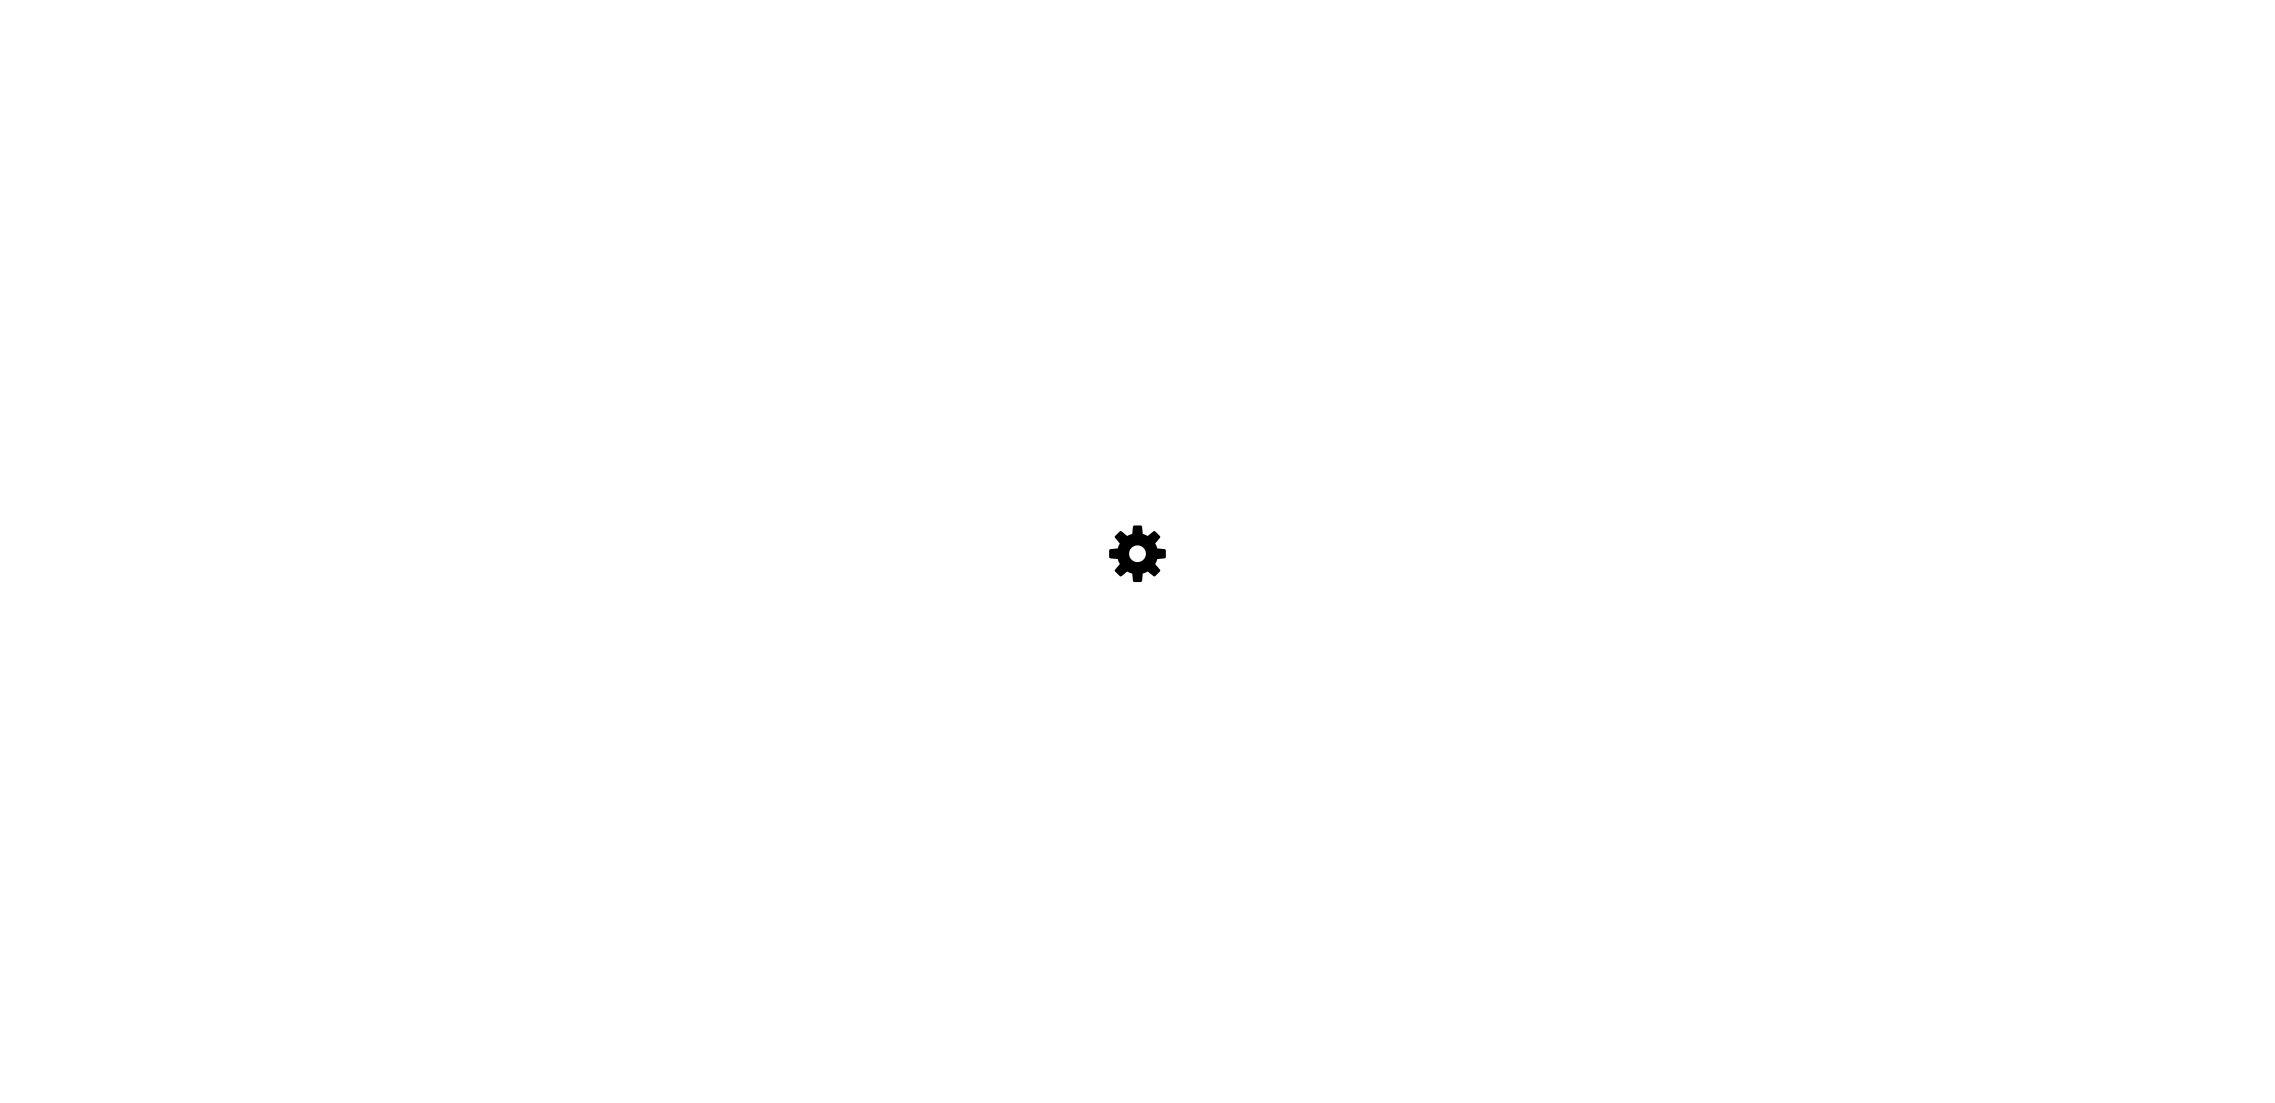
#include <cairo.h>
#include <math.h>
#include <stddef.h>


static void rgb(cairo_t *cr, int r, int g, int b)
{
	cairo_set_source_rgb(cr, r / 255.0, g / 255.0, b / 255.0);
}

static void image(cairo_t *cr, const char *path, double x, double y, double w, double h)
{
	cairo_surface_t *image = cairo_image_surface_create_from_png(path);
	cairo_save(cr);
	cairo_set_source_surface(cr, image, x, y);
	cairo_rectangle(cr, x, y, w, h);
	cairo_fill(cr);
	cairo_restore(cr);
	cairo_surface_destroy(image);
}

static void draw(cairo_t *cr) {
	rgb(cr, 255, 255, 255);
	cairo_paint(cr);
	image(cr, "image0.png", 1109, 525, 57, 58);
}

int main(void) {
	cairo_surface_t *surface = cairo_image_surface_create(CAIRO_FORMAT_RGB24, 2275, 1103);
	cairo_t *cr = cairo_create(surface);
	cairo_font_options_t *options = cairo_font_options_create();
	cairo_font_options_set_hint_metrics(options, CAIRO_HINT_METRICS_OFF);
	cairo_font_options_set_hint_style(options, CAIRO_HINT_STYLE_NONE);
	cairo_set_font_options(cr, options);
	cairo_set_miter_limit(cr, 4);
	draw(cr);
	cairo_surface_write_to_png(surface, "render.png");
	cairo_font_options_destroy(options);
	cairo_destroy(cr);
	cairo_surface_destroy(surface);
	return 0;
}
